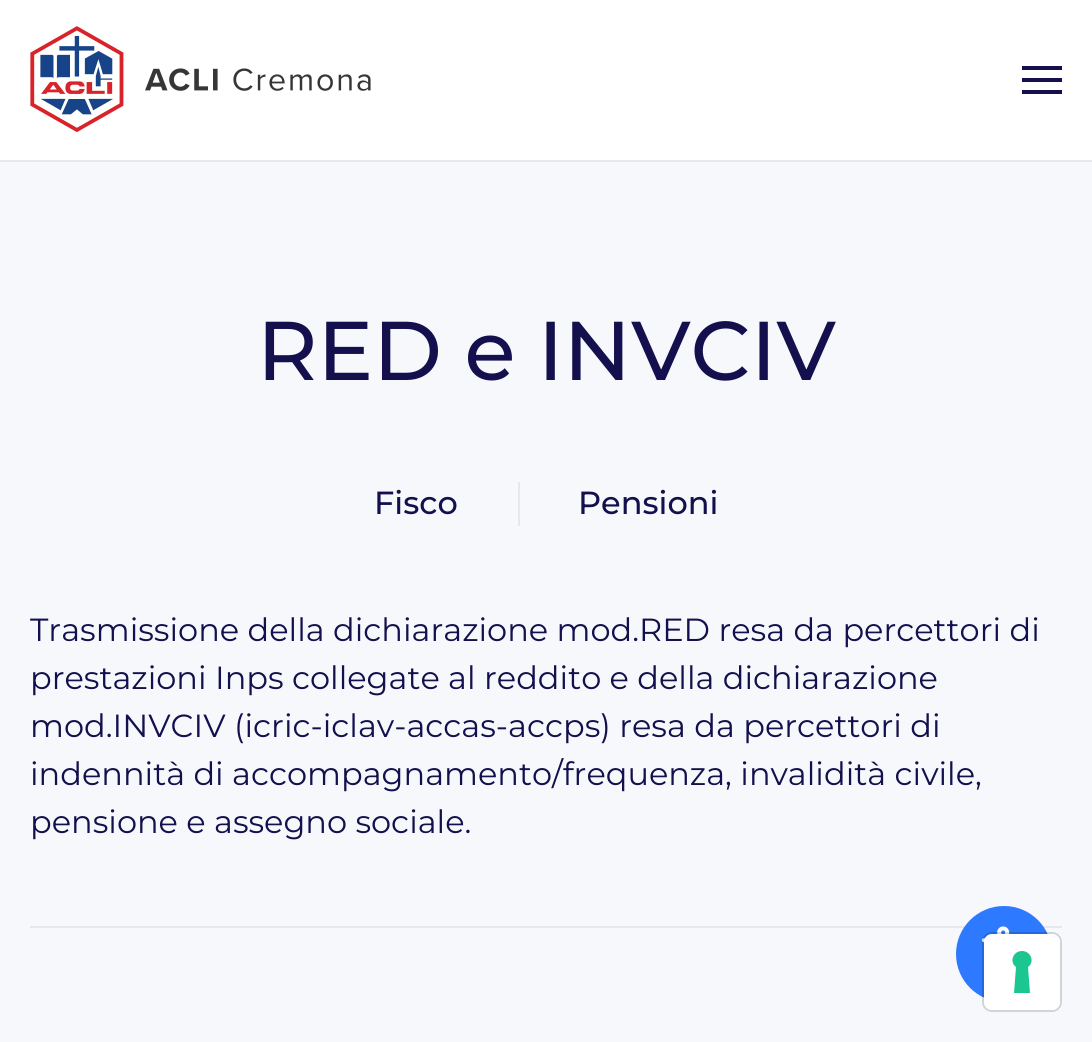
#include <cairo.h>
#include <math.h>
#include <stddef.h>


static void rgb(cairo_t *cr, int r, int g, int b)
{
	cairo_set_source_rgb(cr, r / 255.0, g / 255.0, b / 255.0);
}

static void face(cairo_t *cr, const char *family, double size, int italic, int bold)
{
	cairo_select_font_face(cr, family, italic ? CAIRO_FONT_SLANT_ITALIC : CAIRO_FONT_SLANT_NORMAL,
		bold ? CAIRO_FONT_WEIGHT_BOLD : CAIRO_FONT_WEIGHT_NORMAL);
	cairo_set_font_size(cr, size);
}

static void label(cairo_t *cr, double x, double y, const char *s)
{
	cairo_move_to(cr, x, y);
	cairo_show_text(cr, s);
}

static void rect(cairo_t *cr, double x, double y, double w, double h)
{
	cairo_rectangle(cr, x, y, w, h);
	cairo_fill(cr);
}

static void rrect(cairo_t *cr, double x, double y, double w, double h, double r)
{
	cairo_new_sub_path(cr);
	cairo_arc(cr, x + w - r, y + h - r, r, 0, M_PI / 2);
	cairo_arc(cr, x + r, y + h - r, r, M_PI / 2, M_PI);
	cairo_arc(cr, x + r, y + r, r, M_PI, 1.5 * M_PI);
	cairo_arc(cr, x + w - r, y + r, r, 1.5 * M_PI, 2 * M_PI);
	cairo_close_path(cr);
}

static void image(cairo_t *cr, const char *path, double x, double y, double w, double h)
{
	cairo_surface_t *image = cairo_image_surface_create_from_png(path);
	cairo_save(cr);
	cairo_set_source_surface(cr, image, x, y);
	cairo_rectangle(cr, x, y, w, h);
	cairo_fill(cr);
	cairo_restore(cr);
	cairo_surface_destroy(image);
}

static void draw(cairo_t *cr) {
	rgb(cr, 255, 255, 255);
	cairo_paint(cr);
	rgb(cr, 231, 232, 235);
	rect(cr, 0, 160, 1092, 2);
	image(cr, "image0.png", 30, 26, 341, 107);
	rgb(cr, 20, 15, 77);
	rect(cr, 1022, 66, 40, 4);
	rect(cr, 1022, 78, 40, 4);
	rect(cr, 1022, 90, 40, 4);
	rgb(cr, 246, 248, 251);
	rect(cr, 0, 162, 1092, 880);
	face(cr, "Montserrat Thin", 83.25, 0, 0);
	rgb(cr, 20, 15, 77);
	label(cr, 257, 380, "RED e INVCIV");
	face(cr, "Montserrat Thin", 32, 0, 0);
	label(cr, 374, 514, "Fisco");
	rgb(cr, 231, 232, 235);
	rect(cr, 518, 482, 2, 44);
	rgb(cr, 20, 15, 77);
	label(cr, 578, 514, "Pensioni");
	face(cr, "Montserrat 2 Thin", 32, 0, 0);
	label(cr, 30, 641, "Trasmissione della dichiarazione mod.RED resa da percettori di");
	label(cr, 30, 689, "prestazioni Inps collegate al reddito e della dichiarazione");
	label(cr, 30, 737, "mod.INVCIV (icric-iclav-accas-accps) resa da percettori di");
	label(cr, 30, 785, "indennità di accompagnamento/frequenza, invalidità civile,");
	label(cr, 30, 833, "pensione e assegno sociale.");
	rgb(cr, 231, 232, 235);
	rect(cr, 30, 926, 1032, 2);
	rgb(cr, 45, 121, 255);
	cairo_new_path(cr);
	cairo_arc(cr, 1004, 954, 48, 0, 2 * M_PI);
	cairo_fill(cr);
	image(cr, "image1.png", 981, 926, 29, 17);
	rrect(cr, 983, 933, 78, 78, 9);
	cairo_set_source_rgba(cr, 0, 0, 0, 0.15);
	cairo_stroke(cr);
	rgb(cr, 255, 255, 255);
	rrect(cr, 984, 934, 76, 76, 8);
	cairo_fill(cr);
	rgb(cr, 28, 198, 145);
	cairo_set_fill_rule(cr, CAIRO_FILL_RULE_EVEN_ODD);
	cairo_new_path(cr);
	cairo_move_to(cr, 1022, 951);
	cairo_curve_to(cr, 1031, 951, 1035, 962, 1028, 967);
	cairo_line_to(cr, 1030, 993);
	cairo_line_to(cr, 1014, 993);
	cairo_line_to(cr, 1016, 967);
	cairo_curve_to(cr, 1009, 962, 1013, 951, 1022, 951);
	cairo_close_path(cr);
	cairo_fill(cr);
}

int main(void) {
	cairo_surface_t *surface = cairo_image_surface_create(CAIRO_FORMAT_RGB24, 1092, 1042);
	cairo_t *cr = cairo_create(surface);
	cairo_font_options_t *options = cairo_font_options_create();
	cairo_font_options_set_hint_metrics(options, CAIRO_HINT_METRICS_OFF);
	cairo_font_options_set_hint_style(options, CAIRO_HINT_STYLE_NONE);
	cairo_set_font_options(cr, options);
	cairo_set_miter_limit(cr, 4);
	draw(cr);
	cairo_surface_write_to_png(surface, "render.png");
	cairo_font_options_destroy(options);
	cairo_destroy(cr);
	cairo_surface_destroy(surface);
	return 0;
}
